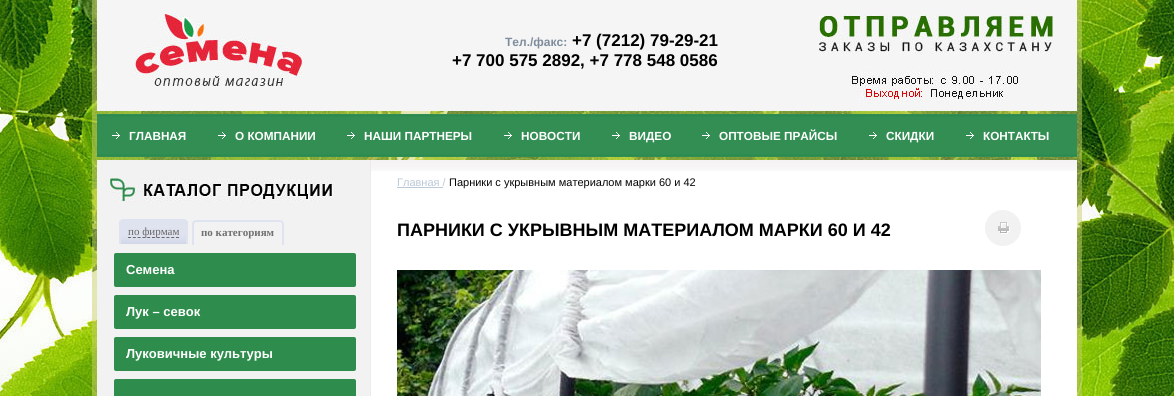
#include <cairo.h>
#include <math.h>
#include <stddef.h>


static void rgb(cairo_t *cr, int r, int g, int b)
{
	cairo_set_source_rgb(cr, r / 255.0, g / 255.0, b / 255.0);
}

static void face(cairo_t *cr, const char *family, double size, int italic, int bold)
{
	cairo_select_font_face(cr, family, italic ? CAIRO_FONT_SLANT_ITALIC : CAIRO_FONT_SLANT_NORMAL,
		bold ? CAIRO_FONT_WEIGHT_BOLD : CAIRO_FONT_WEIGHT_NORMAL);
	cairo_set_font_size(cr, size);
}

static void label(cairo_t *cr, double x, double y, const char *s)
{
	cairo_move_to(cr, x, y);
	cairo_show_text(cr, s);
}

static void rect(cairo_t *cr, double x, double y, double w, double h)
{
	cairo_rectangle(cr, x, y, w, h);
	cairo_fill(cr);
}

static void rrect(cairo_t *cr, double x, double y, double w, double h, double r)
{
	cairo_new_sub_path(cr);
	cairo_arc(cr, x + w - r, y + h - r, r, 0, M_PI / 2);
	cairo_arc(cr, x + r, y + h - r, r, M_PI / 2, M_PI);
	cairo_arc(cr, x + r, y + r, r, M_PI, 1.5 * M_PI);
	cairo_arc(cr, x + w - r, y + r, r, 1.5 * M_PI, 2 * M_PI);
	cairo_close_path(cr);
}

static void image(cairo_t *cr, const char *path, double x, double y, double w, double h)
{
	cairo_surface_t *image = cairo_image_surface_create_from_png(path);
	cairo_save(cr);
	cairo_set_source_surface(cr, image, x, y);
	cairo_rectangle(cr, x, y, w, h);
	cairo_fill(cr);
	cairo_restore(cr);
	cairo_surface_destroy(image);
}

static void draw(cairo_t *cr) {
	rgb(cr, 255, 255, 255);
	cairo_paint(cr);
	image(cr, "image0.png", 0, 0, 1174, 396);
	cairo_set_source_rgba(cr, 0.792, 0.816, 0.424, 0.5);
	rect(cr, 97, 111, 980, 49);
	cairo_new_path(cr);
	cairo_move_to(cr, 1082, -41);
	cairo_line_to(cr, 1082, 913);
	cairo_line_to(cr, 1077, 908);
	cairo_line_to(cr, 1077, -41);
	cairo_close_path(cr);
	cairo_fill(cr);
	cairo_new_path(cr);
	cairo_move_to(cr, 92, 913);
	cairo_line_to(cr, 92, -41);
	cairo_line_to(cr, 97, -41);
	cairo_line_to(cr, 97, 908);
	cairo_close_path(cr);
	cairo_fill(cr);
	rgb(cr, 245, 245, 245);
	rect(cr, 97, 0, 980, 111);
	image(cr, "image1.png", 135, 14, 167, 72);
	face(cr, "Liberation Sans", 12, 0, 1);
	rgb(cr, 126, 140, 156);
	label(cr, 505, 46, "Тел./факс:");
	face(cr, "Liberation Sans", 17, 0, 1);
	rgb(cr, 0, 0, 0);
	label(cr, 572, 46, "+7 (7212) 79-29-21");
	label(cr, 452, 66, "+7 700 575 2892, +7 778 548 0586");
	image(cr, "image2.png", 819, 15, 234, 88);
	image(cr, "image3.png", 97, 114, 980, 43);
	image(cr, "image4.png", 112, 132, 8, 7);
	face(cr, "Liberation Sans", 11.75, 0, 1);
	rgb(cr, 255, 255, 255);
	label(cr, 129, 140, "ГЛАВНАЯ");
	image(cr, "image4.png", 218, 132, 8, 7);
	label(cr, 235, 140, "О КОМПАНИИ");
	image(cr, "image4.png", 347, 132, 8, 7);
	label(cr, 364, 140, "НАШИ ПАРТНЕРЫ");
	image(cr, "image4.png", 504, 132, 8, 7);
	label(cr, 521, 140, "НОВОСТИ");
	image(cr, "image4.png", 612, 132, 8, 7);
	label(cr, 629, 140, "ВИДЕО");
	image(cr, "image4.png", 702, 132, 8, 7);
	label(cr, 719, 140, "ОПТОВЫЕ ПРАЙСЫ");
	image(cr, "image4.png", 869, 132, 8, 7);
	label(cr, 886, 140, "СКИДКИ");
	image(cr, "image4.png", 966, 132, 8, 7);
	label(cr, 983, 140, "КОНТАКТЫ");
	rgb(cr, 242, 242, 242);
	rect(cr, 97, 160, 273, 236);
	rgb(cr, 255, 255, 255);
	rect(cr, 371, 160, 706, 236);
	rgb(cr, 235, 235, 235);
	rect(cr, 370, 160, 1, 236);
	image(cr, "image5.png", 371, 160, 706, 11);
	face(cr, "Liberation Sans", 11, 0, 0);
	rgb(cr, 186, 200, 216);
	label(cr, 397, 186, "Главная /");
	rect(cr, 397, 187, 46, 1);
	rgb(cr, 6, 6, 6);
	label(cr, 449, 186, "Парники с укрывным материалом марки 60 и 42");
	face(cr, "Liberation Sans", 18, 0, 1);
	rgb(cr, 0, 0, 0);
	label(cr, 397, 236, "ПАРНИКИ С УКРЫВНЫМ МАТЕРИАЛОМ МАРКИ 60 И 42");
	image(cr, "image6.png", 985, 210, 36, 36);
	image(cr, "image7.png", 397, 270, 644, 126);
	image(cr, "image8.png", 110, 178, 223, 24);
	image(cr, "image9.png", 119, 221, 69, 23);
	rgb(cr, 223, 227, 239);
	cairo_set_fill_rule(cr, CAIRO_FILL_RULE_EVEN_ODD);
	cairo_new_path(cr);
	cairo_move_to(cr, 123, 219);
	cairo_line_to(cr, 184, 219);
	cairo_curve_to(cr, 186, 219, 188, 221, 188, 223);
	cairo_line_to(cr, 188, 244);
	cairo_line_to(cr, 119, 244);
	cairo_line_to(cr, 119, 223);
	cairo_curve_to(cr, 119, 221, 121, 219, 123, 219);
	cairo_close_path(cr);
	cairo_move_to(cr, 123, 221);
	cairo_line_to(cr, 184, 221);
	cairo_curve_to(cr, 185, 221, 186, 222, 186, 223);
	cairo_line_to(cr, 186, 244);
	cairo_line_to(cr, 121, 244);
	cairo_line_to(cr, 121, 223);
	cairo_curve_to(cr, 121, 222, 122, 221, 123, 221);
	cairo_close_path(cr);
	cairo_fill(cr);
	cairo_new_path(cr);
	cairo_move_to(cr, 128, 237.5);
	cairo_line_to(cr, 179, 237.5);
	rgb(cr, 104, 104, 104);
	cairo_set_line_width(cr, 1);
	cairo_set_dash(cr, (double[]){3, 1.8}, 2, 0);
	cairo_stroke(cr);
	face(cr, "Liberation Serif", 11, 0, 0);
	label(cr, 128, 235, "по фирмам");
	rgb(cr, 223, 227, 239);
	cairo_new_path(cr);
	cairo_move_to(cr, 196, 220);
	cairo_line_to(cr, 280, 220);
	cairo_curve_to(cr, 282, 220, 284, 222, 284, 224);
	cairo_line_to(cr, 284, 245);
	cairo_line_to(cr, 192, 245);
	cairo_line_to(cr, 192, 224);
	cairo_curve_to(cr, 192, 222, 194, 220, 196, 220);
	cairo_close_path(cr);
	cairo_move_to(cr, 196, 222);
	cairo_line_to(cr, 280, 222);
	cairo_curve_to(cr, 281, 222, 282, 223, 282, 224);
	cairo_line_to(cr, 282, 245);
	cairo_line_to(cr, 194, 245);
	cairo_line_to(cr, 194, 224);
	cairo_curve_to(cr, 194, 223, 195, 222, 196, 222);
	cairo_close_path(cr);
	cairo_fill(cr);
	face(cr, "Liberation Serif", 11, 0, 1);
	rgb(cr, 113, 111, 111);
	label(cr, 201, 236, "по категориям");
	rgb(cr, 46, 140, 76);
	rrect(cr, 114, 253, 242, 34, 2);
	cairo_fill(cr);
	face(cr, "Liberation Sans", 13, 0, 1);
	rgb(cr, 255, 255, 255);
	label(cr, 126, 274, "Семена");
	rgb(cr, 46, 140, 76);
	rrect(cr, 114, 295, 242, 34, 2);
	cairo_fill(cr);
	rgb(cr, 255, 255, 255);
	label(cr, 126, 316, "Лук – севок");
	rgb(cr, 46, 140, 76);
	rrect(cr, 114, 337, 242, 34, 2);
	cairo_fill(cr);
	rgb(cr, 255, 255, 255);
	label(cr, 126, 358, "Луковичные культуры");
	rgb(cr, 46, 140, 76);
	rrect(cr, 114, 379, 242, 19, 2);
	cairo_fill(cr);
}

int main(void) {
	cairo_surface_t *surface = cairo_image_surface_create(CAIRO_FORMAT_RGB24, 1174, 396);
	cairo_t *cr = cairo_create(surface);
	cairo_font_options_t *options = cairo_font_options_create();
	cairo_font_options_set_hint_metrics(options, CAIRO_HINT_METRICS_OFF);
	cairo_font_options_set_hint_style(options, CAIRO_HINT_STYLE_NONE);
	cairo_set_font_options(cr, options);
	cairo_set_miter_limit(cr, 4);
	draw(cr);
	cairo_surface_write_to_png(surface, "render.png");
	cairo_font_options_destroy(options);
	cairo_destroy(cr);
	cairo_surface_destroy(surface);
	return 0;
}
